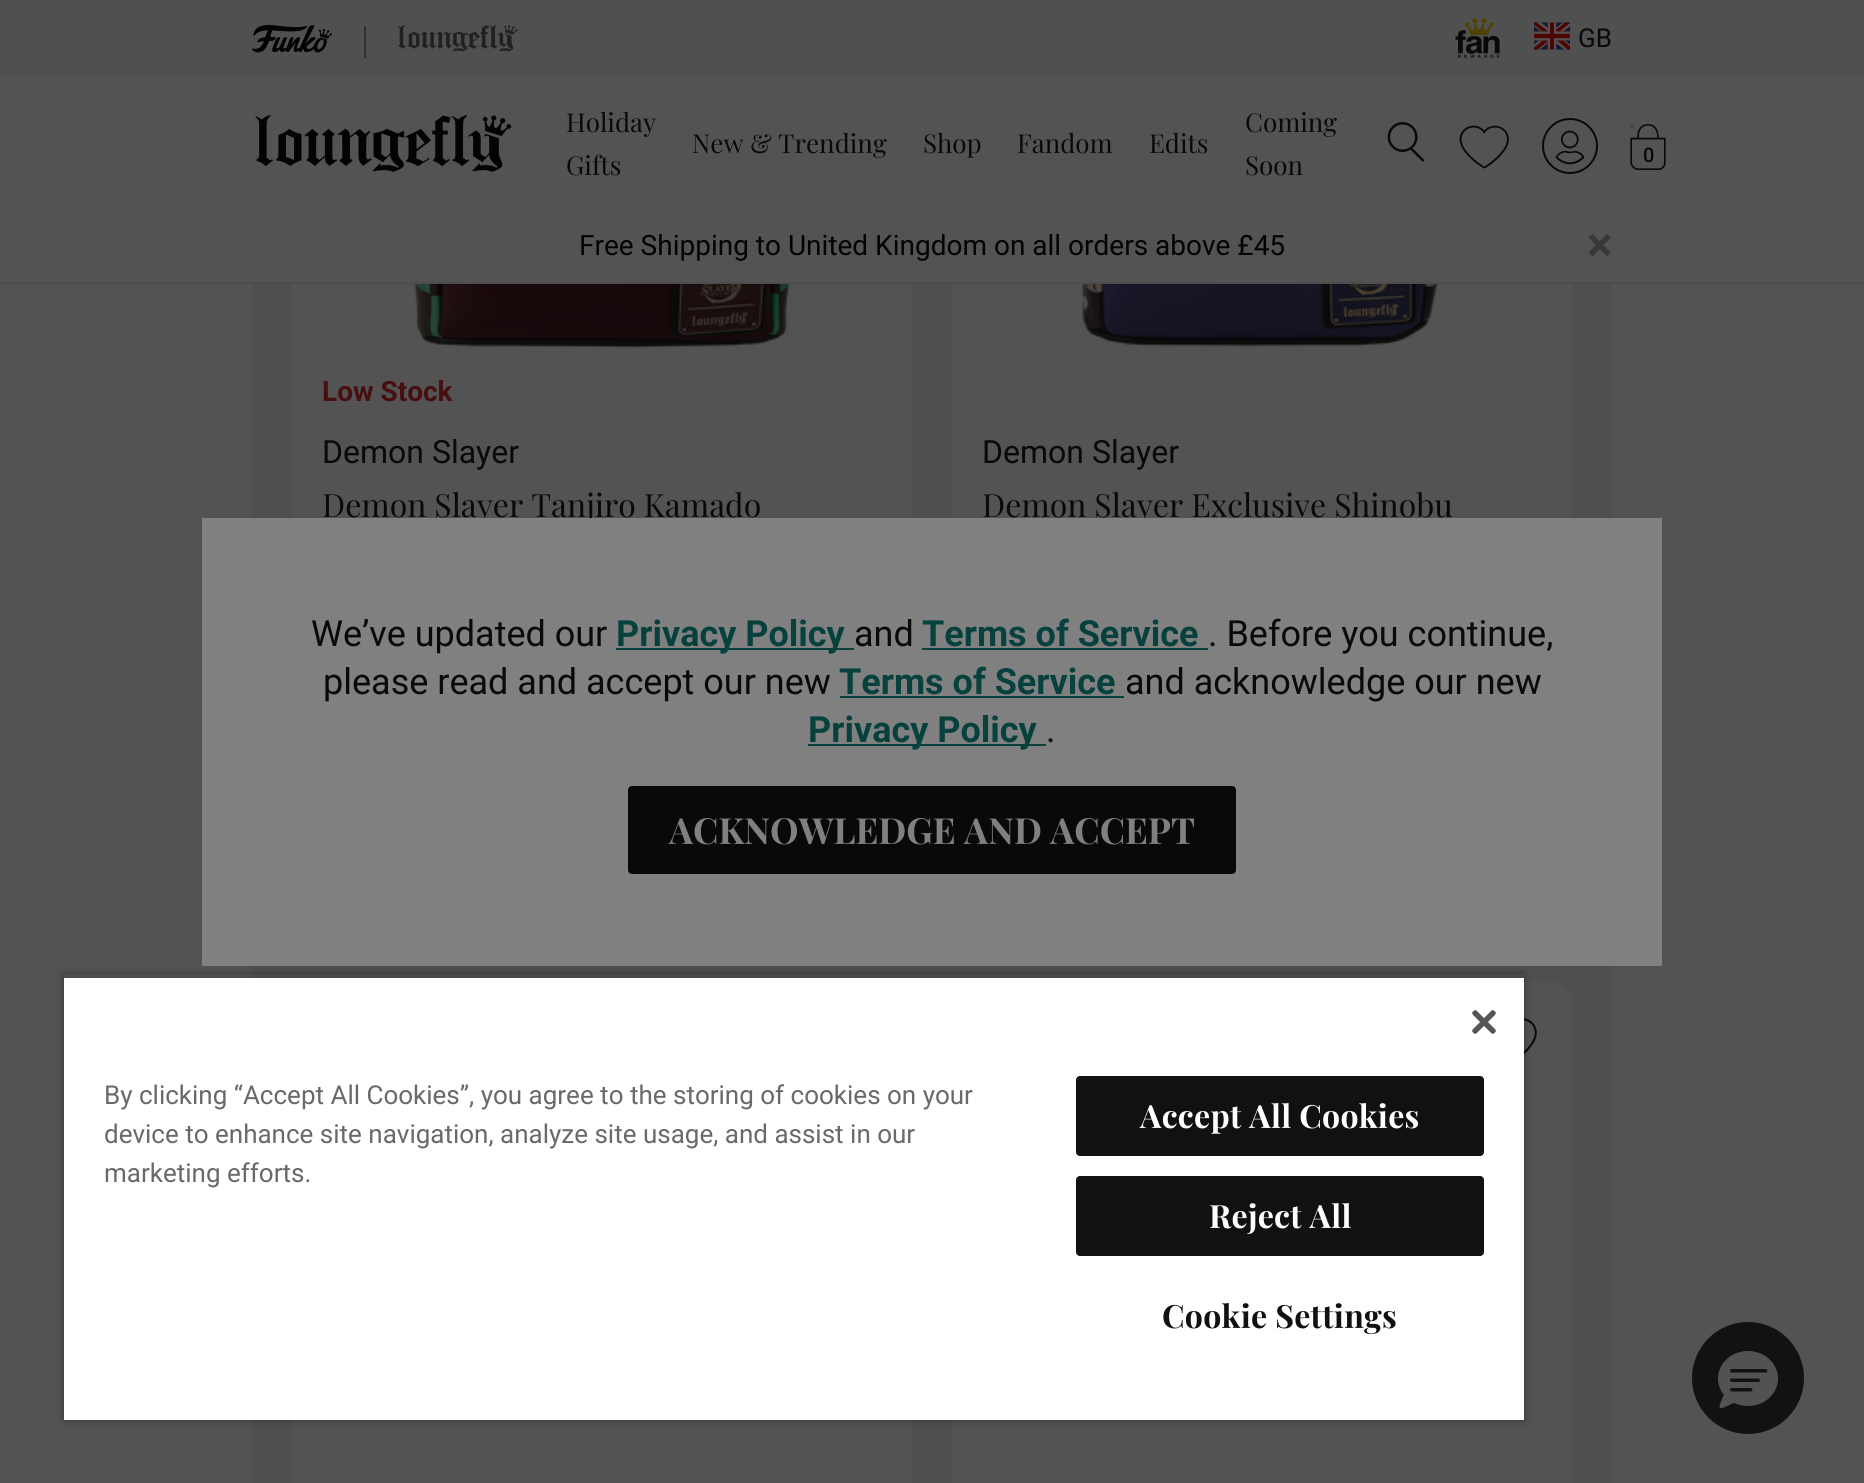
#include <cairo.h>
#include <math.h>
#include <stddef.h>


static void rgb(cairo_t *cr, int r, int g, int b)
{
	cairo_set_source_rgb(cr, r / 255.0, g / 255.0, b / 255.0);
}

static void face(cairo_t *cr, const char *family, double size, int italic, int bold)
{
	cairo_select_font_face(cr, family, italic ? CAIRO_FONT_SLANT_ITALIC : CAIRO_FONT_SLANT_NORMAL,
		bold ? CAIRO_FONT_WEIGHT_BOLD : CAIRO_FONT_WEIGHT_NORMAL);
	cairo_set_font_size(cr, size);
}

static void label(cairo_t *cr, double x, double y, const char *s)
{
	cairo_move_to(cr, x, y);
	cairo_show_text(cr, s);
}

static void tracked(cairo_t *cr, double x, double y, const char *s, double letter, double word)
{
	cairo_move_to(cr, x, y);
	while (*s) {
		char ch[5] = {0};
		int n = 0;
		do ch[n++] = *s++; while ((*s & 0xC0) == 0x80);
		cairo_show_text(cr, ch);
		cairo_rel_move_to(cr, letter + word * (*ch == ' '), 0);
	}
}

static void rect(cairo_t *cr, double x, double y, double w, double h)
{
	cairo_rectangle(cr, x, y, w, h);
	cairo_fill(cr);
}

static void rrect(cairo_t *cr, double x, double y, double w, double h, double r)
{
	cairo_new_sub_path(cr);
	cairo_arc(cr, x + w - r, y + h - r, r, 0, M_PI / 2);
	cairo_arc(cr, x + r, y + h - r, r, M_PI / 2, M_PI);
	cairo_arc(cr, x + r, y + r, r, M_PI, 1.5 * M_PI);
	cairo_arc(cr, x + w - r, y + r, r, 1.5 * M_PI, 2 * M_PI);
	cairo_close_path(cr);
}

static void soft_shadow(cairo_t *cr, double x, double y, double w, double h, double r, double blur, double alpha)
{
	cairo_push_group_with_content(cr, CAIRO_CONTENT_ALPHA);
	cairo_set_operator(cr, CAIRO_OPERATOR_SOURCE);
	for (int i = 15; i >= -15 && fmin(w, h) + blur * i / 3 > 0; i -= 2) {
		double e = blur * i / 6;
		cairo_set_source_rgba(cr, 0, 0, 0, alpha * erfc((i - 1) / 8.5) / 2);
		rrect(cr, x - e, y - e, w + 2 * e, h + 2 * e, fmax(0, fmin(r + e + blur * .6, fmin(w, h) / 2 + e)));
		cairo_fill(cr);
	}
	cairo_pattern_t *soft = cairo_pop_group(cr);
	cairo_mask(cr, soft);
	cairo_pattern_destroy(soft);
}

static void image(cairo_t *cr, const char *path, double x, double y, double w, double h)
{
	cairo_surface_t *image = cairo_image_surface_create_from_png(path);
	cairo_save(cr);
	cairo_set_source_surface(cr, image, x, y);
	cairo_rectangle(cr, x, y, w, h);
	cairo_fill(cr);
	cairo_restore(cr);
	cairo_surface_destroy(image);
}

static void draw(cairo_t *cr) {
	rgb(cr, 83, 83, 83);
	cairo_paint(cr);
	rgb(cr, 79, 79, 80);
	rect(cr, 252, 284, 1360, 1199);
	rgb(cr, 83, 83, 83);
	rect(cr, 322, 284, 560, 234);
	cairo_set_fill_rule(cr, CAIRO_FILL_RULE_EVEN_ODD);
	cairo_new_path(cr);
	cairo_move_to(cr, 312, -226);
	cairo_curve_to(cr, 301, -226, 292, -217, 292, -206);
	cairo_line_to(cr, 292, 894);
	cairo_curve_to(cr, 292, 905, 301, 914, 312, 914);
	cairo_line_to(cr, 892, 914);
	cairo_curve_to(cr, 903, 914, 912, 905, 912, 894);
	cairo_line_to(cr, 912, -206);
	cairo_curve_to(cr, 912, -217, 903, -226, 892, -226);
	cairo_close_path(cr);
	cairo_move_to(cr, 322, -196);
	cairo_line_to(cr, 322, 884);
	cairo_line_to(cr, 882, 884);
	cairo_line_to(cr, 882, -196);
	cairo_close_path(cr);
	cairo_fill(cr);
	rect(cr, 982, 284, 560, 234);
	cairo_new_path(cr);
	cairo_move_to(cr, 972, -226);
	cairo_curve_to(cr, 961, -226, 952, -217, 952, -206);
	cairo_line_to(cr, 952, 894);
	cairo_curve_to(cr, 952, 905, 961, 914, 972, 914);
	cairo_line_to(cr, 1552, 914);
	cairo_curve_to(cr, 1563, 914, 1572, 905, 1572, 894);
	cairo_line_to(cr, 1572, -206);
	cairo_curve_to(cr, 1572, -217, 1563, -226, 1552, -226);
	cairo_close_path(cr);
	cairo_move_to(cr, 982, -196);
	cairo_line_to(cr, 982, 884);
	cairo_line_to(cr, 1542, 884);
	cairo_line_to(cr, 1542, -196);
	cairo_close_path(cr);
	cairo_fill(cr);
	rgb(cr, 77, 77, 77);
	rect(cr, 0, 282, 1864, 2);
	rgb(cr, 80, 80, 80);
	rect(cr, 0, 0, 1864, 76);
	image(cr, "image0.png", 252, 24, 80, 29);
	rgb(cr, 48, 48, 48);
	rect(cr, 364, 26, 2, 32);
	image(cr, "image1.png", 398, 25, 120, 27);
	image(cr, "image2.png", 1455, 18, 45, 40);
	image(cr, "image3.png", 1534, 22, 36, 28);
	face(cr, "Roboto", 26, 0, 0);
	rgb(cr, 9, 9, 9);
	label(cr, 1578, 47, "GB");
	image(cr, "image4.png", 255, 115, 257, 57);
	face(cr, "Playfair Display", 26, 0, 0);
	label(cr, 566, 132, "Holiday");
	label(cr, 566, 175, "Gifts");
	label(cr, 692, 153, "New & Trending");
	label(cr, 923, 153, "Shop");
	label(cr, 1017, 153, "Fandom");
	label(cr, 1149, 153, "Edits");
	label(cr, 1245, 132, "Coming");
	label(cr, 1245, 175, "Soon");
	image(cr, "image5.png", 1387, 122, 38, 40);
	image(cr, "image6.png", 1459, 125, 50, 44);
	image(cr, "image7.png", 1555, 130, 30, 35);
	cairo_arc(cr, 1570, 146, 27, 0, 2 * M_PI);
	cairo_stroke(cr);
	image(cr, "image8.png", 1630, 124, 36, 46);
	rgb(cr, 68, 68, 68);
	cairo_arc(cr, 1632, 126, 2, 0, 2 * M_PI);
	cairo_fill(cr);
	face(cr, "Roboto Medium", 20, 0, 0);
	rgb(cr, 9, 9, 9);
	label(cr, 1643, 162, "0");
	face(cr, "Roboto", 28, 0, 0);
	rgb(cr, 3, 3, 3);
	label(cr, 579, 255, "Free Shipping to United Kingdom on all orders above £45");
	face(cr, "Roboto", 48, 0, 1);
	rgb(cr, 56, 56, 56);
	label(cr, 1587, 261, "×");
	image(cr, "image9.png", 414, 284, 376, 65);
	face(cr, "Roboto", 28, 0, 1);
	rgb(cr, 71, 15, 15);
	label(cr, 322, 401, "Low Stock");
	face(cr, "Roboto", 32, 0, 0);
	rgb(cr, 9, 9, 9);
	label(cr, 322, 463, "Demon Slayer");
	face(cr, "Playfair Display", 32, 0, 0);
	label(cr, 322, 517, "Demon Slayer Tanjiro Kamado");
	image(cr, "image10.png", 1082, 284, 357, 63);
	face(cr, "Roboto", 32, 0, 0);
	label(cr, 982, 463, "Demon Slayer");
	face(cr, "Playfair Display", 32, 0, 0);
	label(cr, 982, 517, "Demon Slayer Exclusive Shinobu");
	rgb(cr, 83, 83, 83);
	rect(cr, 322, 1420, 560, 63);
	cairo_new_path(cr);
	cairo_move_to(cr, 312, 982);
	cairo_curve_to(cr, 301, 982, 292, 991, 292, 1002);
	cairo_line_to(cr, 292, 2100);
	cairo_curve_to(cr, 292, 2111, 301, 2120, 312, 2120);
	cairo_line_to(cr, 892, 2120);
	cairo_curve_to(cr, 903, 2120, 912, 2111, 912, 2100);
	cairo_line_to(cr, 912, 1002);
	cairo_curve_to(cr, 912, 991, 903, 982, 892, 982);
	cairo_close_path(cr);
	cairo_move_to(cr, 322, 1012);
	cairo_line_to(cr, 322, 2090);
	cairo_line_to(cr, 882, 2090);
	cairo_line_to(cr, 882, 1012);
	cairo_close_path(cr);
	cairo_fill(cr);
	rrect(cr, 952, 982, 620, 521, 20);
	cairo_fill(cr);
	image(cr, "image11.png", 1524, 1018, 13, 37);
	image(cr, "image12.png", 1524, 1298, 1, 6);
	rgb(cr, 128, 128, 128);
	rect(cr, 202, 518, 1460, 448);
	face(cr, "Roboto", 36, 0, 0);
	rgb(cr, 9, 9, 9);
	label(cr, 311, 646, "We’ve updated our");
	rgb(cr, 7, 65, 61);
	rect(cr, 616, 648, 238, 2);
	face(cr, "Roboto", 36, 0, 1);
	label(cr, 616, 646, "Privacy Policy");
	face(cr, "Roboto", 36, 0, 0);
	rgb(cr, 9, 9, 9);
	label(cr, 854, 646, "and");
	face(cr, "Roboto", 36, 0, 1);
	rgb(cr, 7, 65, 61);
	label(cr, 922, 646, "Terms of Service");
	rect(cr, 922, 648, 286, 2);
	face(cr, "Roboto", 36, 0, 0);
	rgb(cr, 9, 9, 9);
	label(cr, 1208, 646, ". Before you continue,");
	label(cr, 323, 694, "please read and accept our new");
	face(cr, "Roboto", 36, 0, 1);
	rgb(cr, 7, 65, 61);
	label(cr, 839, 694, "Terms of Service");
	rect(cr, 840, 696, 284, 2);
	face(cr, "Roboto", 36, 0, 0);
	rgb(cr, 9, 9, 9);
	label(cr, 1125, 694, "and acknowledge our new");
	rgb(cr, 7, 65, 61);
	rect(cr, 808, 744, 238, 2);
	face(cr, "Roboto", 36, 0, 1);
	label(cr, 808, 742, "Privacy Policy");
	face(cr, "Roboto", 36, 0, 0);
	rgb(cr, 9, 9, 9);
	label(cr, 1046, 742, ".");
	rrect(cr, 628, 786, 608, 88, 4);
	cairo_fill(cr);
	face(cr, "Playfair Display", 36, 0, 1);
	rgb(cr, 128, 128, 128);
	label(cr, 669, 844, "ACKNOWLEDGE AND ACCEPT");
	cairo_save(cr);
	cairo_new_path(cr);
	cairo_move_to(cr, 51, 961);
	cairo_line_to(cr, 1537, 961);
	cairo_line_to(cr, 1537, 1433);
	cairo_line_to(cr, 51, 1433);
	cairo_close_path(cr);
	cairo_move_to(cr, 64, 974);
	cairo_line_to(cr, 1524, 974);
	cairo_line_to(cr, 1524, 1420);
	cairo_line_to(cr, 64, 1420);
	cairo_close_path(cr);
	cairo_clip(cr);
	rgb(cr, 0, 0, 0);
	soft_shadow(cr, 64, 974, 1460, 446, 0, 4, 0.35);
	cairo_restore(cr);
	cairo_save(cr);
	cairo_set_fill_rule(cr, CAIRO_FILL_RULE_WINDING);
	cairo_rectangle(cr, 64, 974, 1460, 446);
	cairo_clip(cr);
	rgb(cr, 0, 0, 0);
	soft_shadow(cr, 64, 978, 1460, 442, 0, 4, 0.2);
	cairo_restore(cr);
	rgb(cr, 255, 255, 255);
	rect(cr, 64, 978, 1460, 442);
	image(cr, "image13.png", 1472, 1010, 24, 24);
	face(cr, "Roboto", 26, 0, 0);
	rgb(cr, 105, 105, 105);
	label(cr, 104, 1104, "By clicking “Accept All Cookies”, you agree to the storing of cookies on your");
	label(cr, 104, 1143, "device to enhance site navigation, analyze site usage, and assist in our");
	label(cr, 104, 1182, "marketing efforts.");
	rgb(cr, 17, 17, 17);
	rrect(cr, 1076, 1076, 408, 80, 4);
	cairo_fill(cr);
	face(cr, "Playfair Display", 32, 0, 1);
	rgb(cr, 255, 255, 255);
	tracked(cr, 1140, 1128, "Accept All Cookies", 0.3, 0);
	rgb(cr, 17, 17, 17);
	rrect(cr, 1076, 1176, 408, 80, 4);
	cairo_fill(cr);
	rgb(cr, 255, 255, 255);
	tracked(cr, 1209, 1228, "Reject All", 0.3, 0);
	rgb(cr, 17, 17, 17);
	tracked(cr, 1162, 1328, "Cookie Settings", 0.3, 0);
	rgb(cr, 18, 18, 18);
	cairo_new_path(cr);
	cairo_arc(cr, 1748, 1378, 56, 0, 2 * M_PI);
	cairo_fill(cr);
	image(cr, "image14.png", 1718, 1351, 60, 58);
}

int main(void) {
	cairo_surface_t *surface = cairo_image_surface_create(CAIRO_FORMAT_RGB24, 1864, 1483);
	cairo_t *cr = cairo_create(surface);
	cairo_font_options_t *options = cairo_font_options_create();
	cairo_font_options_set_hint_metrics(options, CAIRO_HINT_METRICS_OFF);
	cairo_font_options_set_hint_style(options, CAIRO_HINT_STYLE_NONE);
	cairo_set_font_options(cr, options);
	cairo_set_miter_limit(cr, 4);
	draw(cr);
	cairo_surface_write_to_png(surface, "render.png");
	cairo_font_options_destroy(options);
	cairo_destroy(cr);
	cairo_surface_destroy(surface);
	return 0;
}
